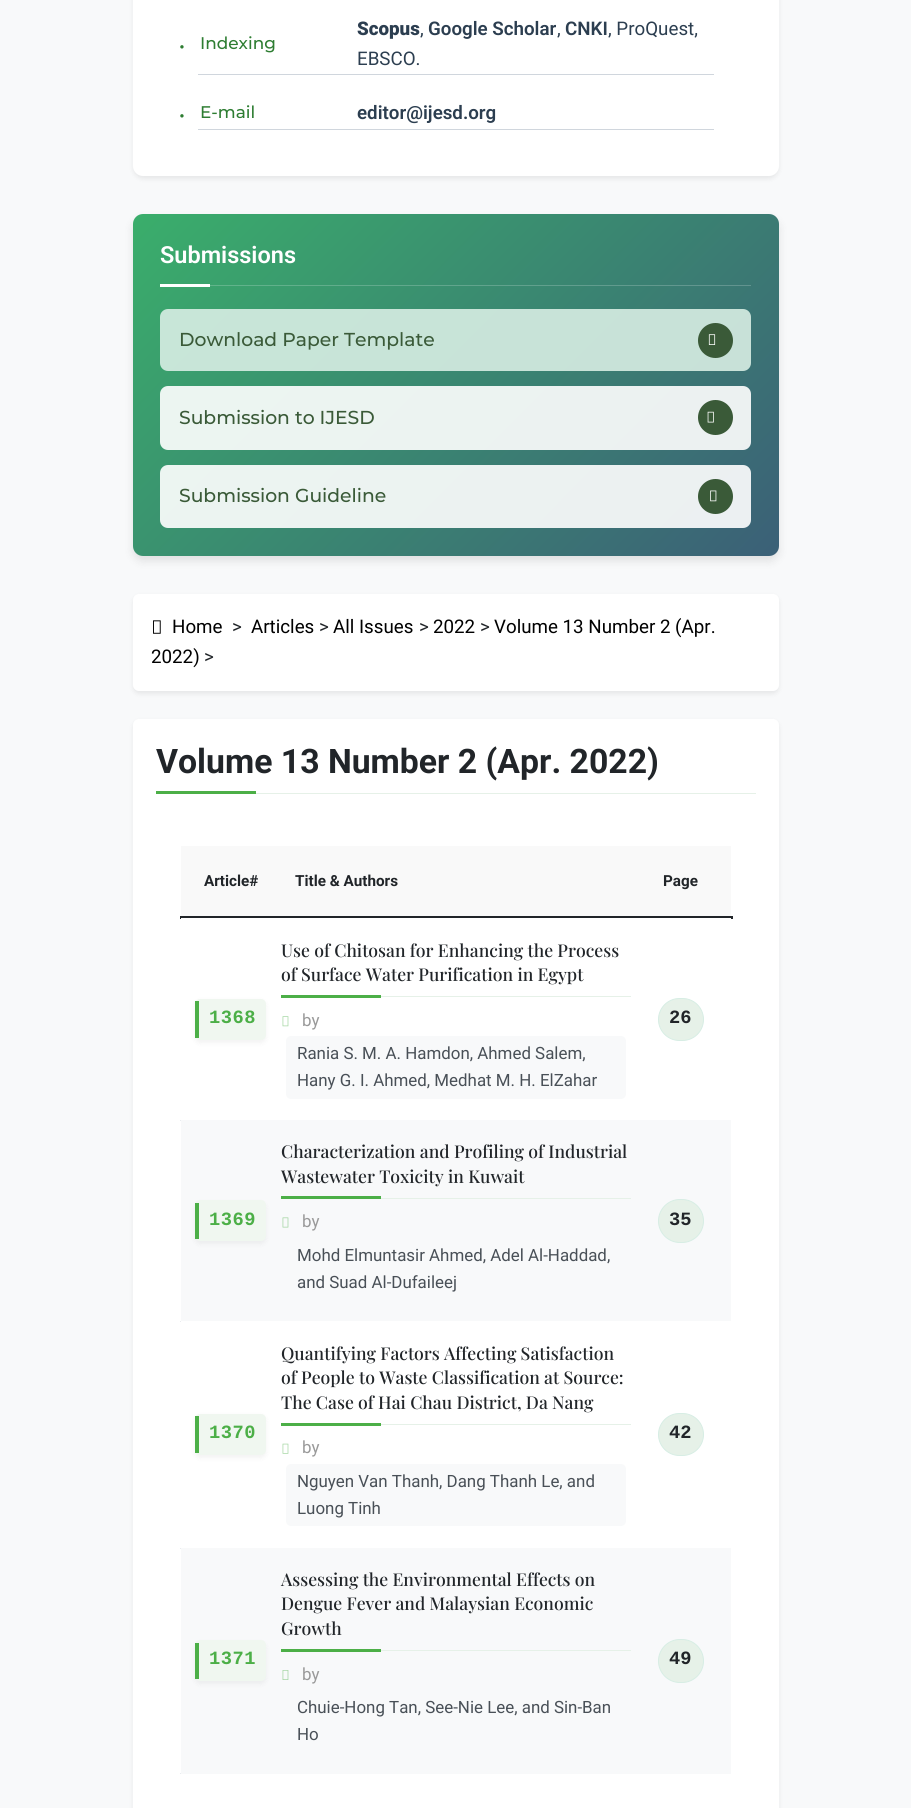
#include <cairo.h>
#include <math.h>
#include <stddef.h>


static void rgb(cairo_t *cr, int r, int g, int b)
{
	cairo_set_source_rgb(cr, r / 255.0, g / 255.0, b / 255.0);
}

static void face(cairo_t *cr, const char *family, double size, int italic, int bold)
{
	cairo_select_font_face(cr, family, italic ? CAIRO_FONT_SLANT_ITALIC : CAIRO_FONT_SLANT_NORMAL,
		bold ? CAIRO_FONT_WEIGHT_BOLD : CAIRO_FONT_WEIGHT_NORMAL);
	cairo_set_font_size(cr, size);
}

static void label(cairo_t *cr, double x, double y, const char *s)
{
	cairo_move_to(cr, x, y);
	cairo_show_text(cr, s);
}

static void tracked(cairo_t *cr, double x, double y, const char *s, double letter, double word)
{
	cairo_move_to(cr, x, y);
	while (*s) {
		char ch[5] = {0};
		int n = 0;
		do ch[n++] = *s++; while ((*s & 0xC0) == 0x80);
		cairo_show_text(cr, ch);
		cairo_rel_move_to(cr, letter + word * (*ch == ' '), 0);
	}
}

static void rect(cairo_t *cr, double x, double y, double w, double h)
{
	cairo_rectangle(cr, x, y, w, h);
	cairo_fill(cr);
}

static void rrect(cairo_t *cr, double x, double y, double w, double h, double r)
{
	cairo_new_sub_path(cr);
	cairo_arc(cr, x + w - r, y + h - r, r, 0, M_PI / 2);
	cairo_arc(cr, x + r, y + h - r, r, M_PI / 2, M_PI);
	cairo_arc(cr, x + r, y + r, r, M_PI, 1.5 * M_PI);
	cairo_arc(cr, x + w - r, y + r, r, 1.5 * M_PI, 2 * M_PI);
	cairo_close_path(cr);
}

static void soft_shadow(cairo_t *cr, double x, double y, double w, double h, double r, double blur, double alpha)
{
	cairo_push_group_with_content(cr, CAIRO_CONTENT_ALPHA);
	cairo_set_operator(cr, CAIRO_OPERATOR_SOURCE);
	for (int i = 15; i >= -15 && fmin(w, h) + blur * i / 3 > 0; i -= 2) {
		double e = blur * i / 6;
		cairo_set_source_rgba(cr, 0, 0, 0, alpha * erfc((i - 1) / 8.5) / 2);
		rrect(cr, x - e, y - e, w + 2 * e, h + 2 * e, fmax(0, fmin(r + e + blur * .6, fmin(w, h) / 2 + e)));
		cairo_fill(cr);
	}
	cairo_pattern_t *soft = cairo_pop_group(cr);
	cairo_mask(cr, soft);
	cairo_pattern_destroy(soft);
}

static void image(cairo_t *cr, const char *path, double x, double y, double w, double h)
{
	cairo_surface_t *image = cairo_image_surface_create_from_png(path);
	cairo_save(cr);
	cairo_set_source_surface(cr, image, x, y);
	cairo_rectangle(cr, x, y, w, h);
	cairo_fill(cr);
	cairo_restore(cr);
	cairo_surface_destroy(image);
}

static void draw(cairo_t *cr) {
	cairo_pattern_t *gradient;
	rgb(cr, 248, 249, 250);
	cairo_paint(cr);
	rgb(cr, 0, 0, 0);
	soft_shadow(cr, 133, -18, 646, 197, 10, 2.5, 0.07);
	rgb(cr, 255, 255, 255);
	rrect(cr, 133, -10, 646, 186, 10);
	cairo_fill(cr);
	rgb(cr, 208, 214, 221);
	rect(cr, 198, 74, 516, 1);
	face(cr, "Montserrat Medium", 18.75, 0, 0);
	rgb(cr, 46, 125, 50);
	label(cr, 179, 52, "•");
	face(cr, "Montserrat Medium", 16.9, 0, 0);
	label(cr, 200, 49, "Indexing");
	face(cr, "Roboto Black", 18.75, 0, 0);
	rgb(cr, 44, 62, 80);
	label(cr, 357, 35, "Scopus");
	face(cr, "Roboto", 18.75, 0, 0);
	label(cr, 420, 35, ",");
	face(cr, "Roboto SemiBold", 18.75, 0, 0);
	label(cr, 428, 35, "Google Scholar");
	face(cr, "Roboto", 18.75, 0, 0);
	label(cr, 557, 35, ",");
	face(cr, "Roboto SemiBold", 18.75, 0, 0);
	label(cr, 565, 35, "CNKI");
	face(cr, "Roboto", 18.75, 0, 0);
	label(cr, 608, 35, ", ProQuest,");
	label(cr, 357, 65, "EBSCO.");
	rgb(cr, 208, 214, 221);
	rect(cr, 198, 129, 516, 1);
	face(cr, "Montserrat Medium", 18.75, 0, 0);
	rgb(cr, 46, 125, 50);
	label(cr, 179, 121, "•");
	face(cr, "Montserrat Medium", 16.9, 0, 0);
	label(cr, 200, 118, "E-mail");
	face(cr, "Roboto SemiBold", 18.75, 0, 0);
	rgb(cr, 44, 62, 80);
	label(cr, 357, 119, "editor@ijesd.org");
	rgb(cr, 0, 0, 0);
	soft_shadow(cr, 133, 219, 646, 342, 10, 4.5, 0.1);
	gradient = cairo_pattern_create_linear(208, 138, 703, 632);
	cairo_pattern_add_color_stop_rgba(gradient, 0, 0.227, 0.682, 0.42, 1);
	cairo_pattern_add_color_stop_rgba(gradient, 1, 0.231, 0.376, 0.467, 1);
	cairo_set_source(cr, gradient);
	cairo_pattern_destroy(gradient);
	rrect(cr, 133, 214, 646, 342, 10);
	cairo_fill(cr);
	gradient = cairo_pattern_create_linear(208, 138, 703, 632);
	cairo_pattern_add_color_stop_rgba(gradient, 0, 0.38, 0.745, 0.537, 1);
	cairo_pattern_add_color_stop_rgba(gradient, 1, 0.384, 0.502, 0.573, 1);
	cairo_set_source(cr, gradient);
	cairo_pattern_destroy(gradient);
	rect(cr, 210, 285, 541, 1);
	face(cr, "Roboto SemiBold", 23.5, 0, 0);
	rgb(cr, 255, 255, 255);
	label(cr, 160, 263, "Submissions");
	rect(cr, 160, 284, 50, 3);
	cairo_set_source_rgba(cr, 0.843, 0.929, 0.894, 0.9);
	rrect(cr, 160, 309, 591, 62, 8);
	cairo_fill(cr);
	face(cr, "Montserrat Medium", 18.75, 0, 0);
	rgb(cr, 58, 90, 56);
	label(cr, 179, 346, "Download Paper Template");
	cairo_new_path(cr);
	cairo_arc(cr, 715.5, 340.5, 17.5, 0, 2 * M_PI);
	cairo_fill(cr);
	image(cr, "image0.png", 708, 334, 8, 11);
	cairo_set_source_rgba(cr, 1, 1, 1, 0.9);
	rrect(cr, 160, 386, 591, 64, 8);
	cairo_fill(cr);
	rgb(cr, 58, 90, 56);
	label(cr, 179, 424, "Submission to IJESD");
	cairo_new_path(cr);
	cairo_arc(cr, 715.5, 417.5, 17.5, 0, 2 * M_PI);
	cairo_fill(cr);
	image(cr, "image1.png", 707, 411, 7, 12);
	cairo_set_source_rgba(cr, 1, 1, 1, 0.9);
	rrect(cr, 160, 465, 591, 63, 8);
	cairo_fill(cr);
	rgb(cr, 58, 90, 56);
	label(cr, 179, 502, "Submission Guideline");
	cairo_new_path(cr);
	cairo_arc(cr, 715.5, 496.5, 17.5, 0, 2 * M_PI);
	cairo_fill(cr);
	image(cr, "image2.png", 710, 490, 7, 12);
	rgb(cr, 0, 0, 0);
	soft_shadow(cr, 133, 596, 646, 98, 6, 2.5, 0.07);
	rgb(cr, 255, 255, 255);
	rrect(cr, 133, 594, 646, 97, 6);
	cairo_fill(cr);
	image(cr, "image3.png", 153, 620, 8, 14);
	face(cr, "Roboto", 18.75, 0, 0);
	rgb(cr, 0, 0, 0);
	label(cr, 172, 633, "Home");
	rgb(cr, 33, 37, 41);
	label(cr, 232, 633, ">");
	rgb(cr, 0, 0, 0);
	label(cr, 251, 633, "Articles");
	rgb(cr, 33, 37, 41);
	label(cr, 319, 633, ">");
	rgb(cr, 0, 0, 0);
	label(cr, 333, 633, "All Issues");
	rgb(cr, 33, 37, 41);
	label(cr, 419, 633, ">");
	rgb(cr, 0, 0, 0);
	label(cr, 433, 633, "2022");
	rgb(cr, 33, 37, 41);
	label(cr, 480, 633, ">");
	rgb(cr, 0, 0, 0);
	label(cr, 494, 633, "Volume 13 Number 2 (Apr.");
	label(cr, 151, 663, "2022)");
	rgb(cr, 33, 37, 41);
	label(cr, 204, 663, ">");
	rgb(cr, 0, 0, 0);
	soft_shadow(cr, 133, 721, 646, 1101, 6, 2.5, 0.07);
	rgb(cr, 255, 255, 255);
	rrect(cr, 133, 719, 646, 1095, 6);
	cairo_fill(cr);
	rgb(cr, 230, 241, 232);
	rect(cr, 256, 793, 500, 1);
	face(cr, "Roboto", 33.75, 0, 1);
	rgb(cr, 33, 37, 41);
	label(cr, 156, 773, "Volume 13 Number 2 (Apr. 2022)");
	rgb(cr, 76, 175, 71);
	rect(cr, 156, 791, 100, 3);
	rgb(cr, 249, 249, 249);
	rect(cr, 181, 846, 550, 70);
	face(cr, "Roboto", 15.25, 0, 1);
	rgb(cr, 33, 37, 41);
	label(cr, 204, 886, "Article#");
	label(cr, 295, 886, "Title & Authors");
	label(cr, 663, 886, "Page");
	rect(cr, 180, 916, 553, 3);
	rgb(cr, 255, 255, 255);
	rect(cr, 181, 918, 550, 1);
	rgb(cr, 233, 236, 239);
	rect(cr, 180, 1120, 1, 1);
	rgb(cr, 0, 0, 0);
	soft_shadow(cr, 195, 1001, 71, 42, 5, 2.5, 0.05);
	rgb(cr, 240, 247, 240);
	rrect(cr, 195, 999, 71, 41, 5);
	cairo_fill(cr);
	rgb(cr, 76, 175, 71);
	rect(cr, 195, 1001, 4, 37);
	face(cr, "Liberation Mono", 18.75, 0, 1);
	tracked(cr, 209, 1023, "1368", 0.5, 0);
	rgb(cr, 230, 241, 232);
	rect(cr, 381, 996, 250, 1);
	face(cr, "Playfair Display Medium", 17.6, 0, 0);
	rgb(cr, 33, 37, 41);
	label(cr, 281, 957, "Use of Chitosan for Enhancing the Process");
	label(cr, 281, 981, "of Surface Water Purification in Egypt");
	rgb(cr, 76, 175, 71);
	rect(cr, 281, 995, 100, 3);
	image(cr, "image4.png", 282, 1016, 7, 11);
	face(cr, "Roboto", 16.9, 0, 0);
	rgb(cr, 153, 153, 153);
	label(cr, 302, 1026, "by");
	rgb(cr, 248, 249, 250);
	rrect(cr, 286, 1036, 340, 63, 5);
	cairo_fill(cr);
	rgb(cr, 73, 80, 87);
	label(cr, 297, 1059, "Rania S. M. A. Hamdon, Ahmed Salem,");
	label(cr, 297, 1086, "Hany G. I. Ahmed, Medhat M. H. ElZahar");
	rgb(cr, 230, 241, 232);
	rrect(cr, 658.5, 998.5, 45, 42, 21);
	cairo_fill_preserve(cr);
	rgb(cr, 215, 237, 228);
	cairo_set_line_width(cr, 1);
	cairo_stroke(cr);
	face(cr, "Liberation Mono", 18.75, 0, 1);
	rgb(cr, 33, 37, 41);
	label(cr, 669, 1023, "26");
	rgb(cr, 248, 249, 250);
	rect(cr, 181, 1120, 550, 201);
	rgb(cr, 233, 236, 239);
	rect(cr, 180, 1321, 1, 1);
	rgb(cr, 0, 0, 0);
	soft_shadow(cr, 195, 1203, 71, 41, 5, 2.5, 0.05);
	rgb(cr, 240, 247, 240);
	rrect(cr, 195, 1200, 71, 41, 5);
	cairo_fill(cr);
	rgb(cr, 76, 175, 71);
	rect(cr, 195, 1203, 4, 36);
	tracked(cr, 209, 1225, "1369", 0.5, 0);
	rgb(cr, 230, 241, 232);
	rect(cr, 381, 1198, 250, 1);
	face(cr, "Playfair Display Medium", 17.6, 0, 0);
	rgb(cr, 33, 37, 41);
	label(cr, 281, 1158, "Characterization and Profiling of Industrial");
	label(cr, 281, 1183, "Wastewater Toxicity in Kuwait");
	rgb(cr, 76, 175, 71);
	rect(cr, 281, 1196, 100, 3);
	image(cr, "image5.png", 282, 1217, 7, 11);
	face(cr, "Roboto", 16.9, 0, 0);
	rgb(cr, 153, 153, 153);
	label(cr, 302, 1227, "by");
	rgb(cr, 73, 80, 87);
	label(cr, 297, 1261, "Mohd Elmuntasir Ahmed, Adel Al-Haddad,");
	label(cr, 297, 1288, "and Suad Al-Dufaileej");
	rgb(cr, 230, 241, 232);
	rrect(cr, 658.5, 1199.5, 45, 43, 21.5);
	cairo_fill_preserve(cr);
	rgb(cr, 215, 237, 228);
	cairo_stroke(cr);
	face(cr, "Liberation Mono", 18.75, 0, 1);
	rgb(cr, 33, 37, 41);
	label(cr, 669, 1225, "35");
	rgb(cr, 233, 236, 239);
	rect(cr, 180, 1548, 1, 1);
	rgb(cr, 0, 0, 0);
	soft_shadow(cr, 195, 1416, 71, 42, 5, 2.5, 0.05);
	rgb(cr, 240, 247, 240);
	rrect(cr, 195, 1414, 71, 41, 5);
	cairo_fill(cr);
	rgb(cr, 76, 175, 71);
	rect(cr, 195, 1416, 4, 37);
	tracked(cr, 209, 1438, "1370", 0.5, 0);
	rgb(cr, 230, 241, 232);
	rect(cr, 381, 1424, 250, 1);
	face(cr, "Playfair Display Medium", 17.6, 0, 0);
	rgb(cr, 33, 37, 41);
	label(cr, 281, 1360, "Quantifying Factors Affecting Satisfaction");
	label(cr, 281, 1384, "of People to Waste Classification at Source:");
	label(cr, 281, 1409, "The Case of Hai Chau District, Da Nang");
	rgb(cr, 76, 175, 71);
	rect(cr, 281, 1423, 100, 3);
	image(cr, "image6.png", 282, 1443, 7, 11);
	face(cr, "Roboto", 16.9, 0, 0);
	rgb(cr, 153, 153, 153);
	label(cr, 302, 1453, "by");
	rgb(cr, 248, 249, 250);
	rrect(cr, 286, 1464, 340, 62, 5);
	cairo_fill(cr);
	rgb(cr, 73, 80, 87);
	label(cr, 297, 1487, "Nguyen Van Thanh, Dang Thanh Le, and");
	label(cr, 297, 1514, "Luong Tinh");
	rgb(cr, 230, 241, 232);
	rrect(cr, 658.5, 1413.5, 45, 42, 21);
	cairo_fill_preserve(cr);
	rgb(cr, 215, 237, 228);
	cairo_stroke(cr);
	face(cr, "Liberation Mono", 18.75, 0, 1);
	rgb(cr, 33, 37, 41);
	label(cr, 669, 1438, "42");
	rgb(cr, 248, 249, 250);
	rect(cr, 181, 1548, 550, 226);
	rgb(cr, 233, 236, 239);
	rect(cr, 180, 1773, 1, 1);
	rgb(cr, 0, 0, 0);
	soft_shadow(cr, 195, 1643, 71, 41, 5, 2.5, 0.05);
	rgb(cr, 240, 247, 240);
	rrect(cr, 195, 1640, 71, 41, 5);
	cairo_fill(cr);
	rgb(cr, 76, 175, 71);
	rect(cr, 195, 1643, 4, 36);
	tracked(cr, 209, 1664, "1371", 0.5, 0);
	rgb(cr, 230, 241, 232);
	rect(cr, 381, 1650, 250, 1);
	face(cr, "Playfair Display Medium", 17.6, 0, 0);
	rgb(cr, 33, 37, 41);
	label(cr, 281, 1586, "Assessing the Environmental Effects on");
	label(cr, 281, 1610, "Dengue Fever and Malaysian Economic");
	label(cr, 281, 1635, "Growth");
	rgb(cr, 76, 175, 71);
	rect(cr, 281, 1649, 100, 3);
	image(cr, "image7.png", 282, 1670, 7, 10);
	face(cr, "Roboto", 16.9, 0, 0);
	rgb(cr, 153, 153, 153);
	label(cr, 302, 1680, "by");
	rgb(cr, 73, 80, 87);
	label(cr, 297, 1713, "Chuie-Hong Tan, See-Nie Lee, and Sin-Ban");
	label(cr, 297, 1740, "Ho");
	rgb(cr, 230, 241, 232);
	rrect(cr, 658.5, 1639.5, 45, 43, 21.5);
	cairo_fill_preserve(cr);
	rgb(cr, 215, 237, 228);
	cairo_stroke(cr);
	face(cr, "Liberation Mono", 18.75, 0, 1);
	rgb(cr, 33, 37, 41);
	label(cr, 669, 1664, "49");
}

int main(void) {
	cairo_surface_t *surface = cairo_image_surface_create(CAIRO_FORMAT_RGB24, 911, 1808);
	cairo_t *cr = cairo_create(surface);
	cairo_font_options_t *options = cairo_font_options_create();
	cairo_font_options_set_hint_metrics(options, CAIRO_HINT_METRICS_OFF);
	cairo_font_options_set_hint_style(options, CAIRO_HINT_STYLE_NONE);
	cairo_set_font_options(cr, options);
	cairo_set_miter_limit(cr, 4);
	draw(cr);
	cairo_surface_write_to_png(surface, "render.png");
	cairo_font_options_destroy(options);
	cairo_destroy(cr);
	cairo_surface_destroy(surface);
	return 0;
}
